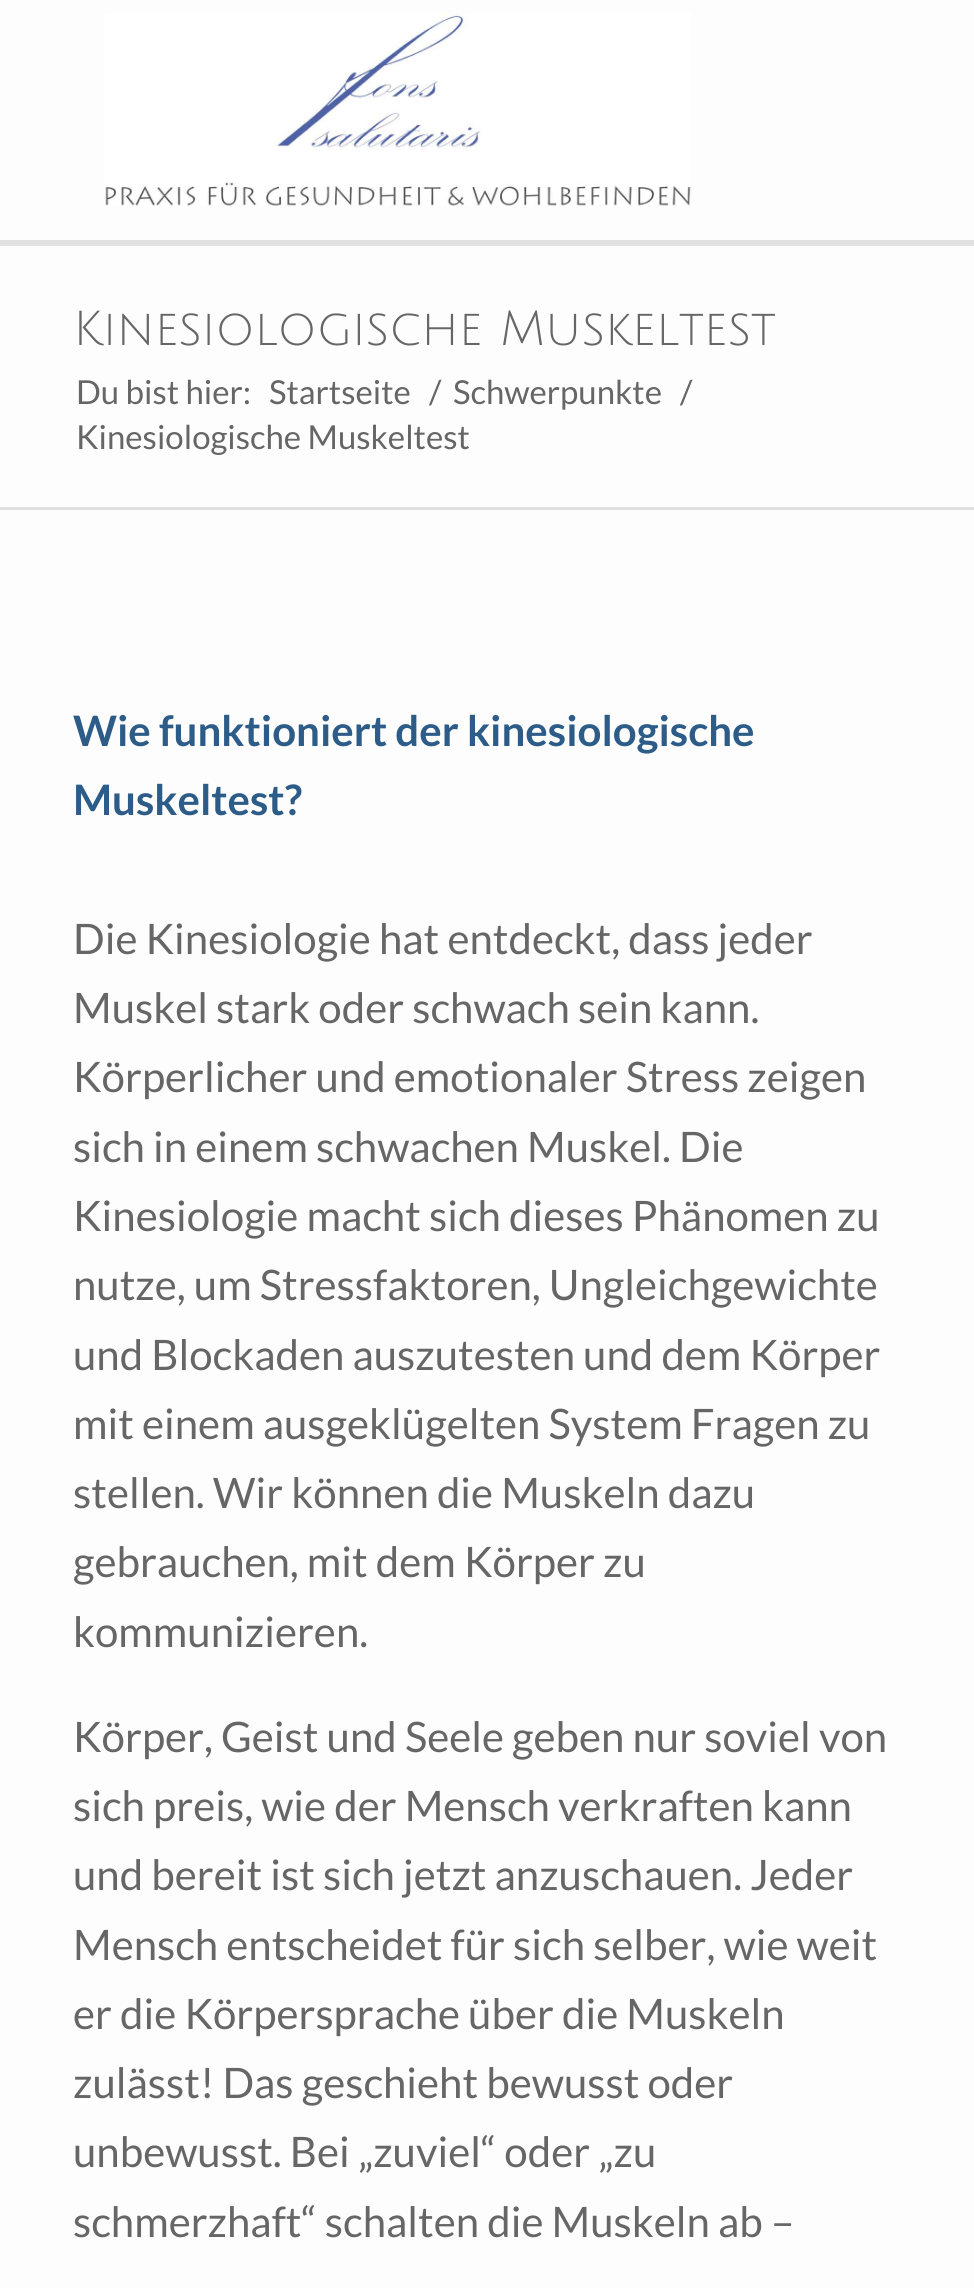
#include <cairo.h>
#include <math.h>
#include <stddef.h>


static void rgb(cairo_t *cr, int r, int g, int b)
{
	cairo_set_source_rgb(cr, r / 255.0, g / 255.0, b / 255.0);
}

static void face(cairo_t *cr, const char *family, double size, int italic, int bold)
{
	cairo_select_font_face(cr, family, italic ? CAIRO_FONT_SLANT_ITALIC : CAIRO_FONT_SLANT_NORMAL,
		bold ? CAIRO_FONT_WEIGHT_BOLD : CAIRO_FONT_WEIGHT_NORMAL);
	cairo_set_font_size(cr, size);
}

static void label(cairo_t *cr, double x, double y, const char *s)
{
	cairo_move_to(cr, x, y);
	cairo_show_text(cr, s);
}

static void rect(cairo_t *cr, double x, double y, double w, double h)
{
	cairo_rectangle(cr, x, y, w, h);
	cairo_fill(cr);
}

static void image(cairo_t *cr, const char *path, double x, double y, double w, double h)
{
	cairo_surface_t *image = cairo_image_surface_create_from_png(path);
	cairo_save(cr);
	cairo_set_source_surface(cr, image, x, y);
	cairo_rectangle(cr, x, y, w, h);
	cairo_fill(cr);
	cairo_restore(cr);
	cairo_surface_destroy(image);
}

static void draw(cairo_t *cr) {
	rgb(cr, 253, 253, 253);
	cairo_paint(cr);
	rgb(cr, 225, 225, 225);
	rect(cr, 0, 240, 974, 6);
	image(cr, "image0.png", 105, 13, 586, 193);
	face(cr, "Julius Sans One", 48, 0, 0);
	rgb(cr, 102, 102, 102);
	label(cr, 73, 345, "Kinesiologische Muskeltest");
	face(cr, "Lato", 33, 0, 0);
	label(cr, 76, 404, "Du bist hier:");
	label(cr, 269, 404, "Startseite");
	label(cr, 429, 404, "/");
	label(cr, 453, 404, "Schwerpunkte");
	label(cr, 680, 404, "/");
	label(cr, 76, 449, "Kinesiologische Muskeltest");
	rgb(cr, 225, 225, 225);
	rect(cr, 0, 507, 974, 3);
	face(cr, "Lato", 42, 0, 1);
	rgb(cr, 45, 92, 136);
	label(cr, 73, 746, "Wie funktioniert der kinesiologische");
	label(cr, 73, 815, "Muskeltest?");
	face(cr, "Lato", 42, 0, 0);
	rgb(cr, 102, 102, 102);
	label(cr, 73, 954, "Die Kinesiologie hat entdeckt, dass jeder");
	label(cr, 73, 1023, "Muskel stark oder schwach sein kann.");
	label(cr, 73, 1092, "Körperlicher und emotionaler Stress zeigen");
	label(cr, 73, 1162, "sich in einem schwachen Muskel. Die");
	label(cr, 73, 1231, "Kinesiologie macht sich dieses Phänomen zu");
	label(cr, 73, 1300, "nutze, um Stressfaktoren, Ungleichgewichte");
	label(cr, 73, 1370, "und Blockaden auszutesten und dem Körper");
	label(cr, 73, 1439, "mit einem ausgeklügelten System Fragen zu");
	label(cr, 73, 1508, "stellen. Wir können die Muskeln dazu");
	label(cr, 73, 1577, "gebrauchen, mit dem Körper zu");
	label(cr, 73, 1647, "kommunizieren.");
	label(cr, 73, 1752, "Körper, Geist und Seele geben nur soviel von");
	label(cr, 73, 1821, "sich preis, wie der Mensch verkraften kann");
	label(cr, 73, 1890, "und bereit ist sich jetzt anzuschauen. Jeder");
	label(cr, 73, 1960, "Mensch entscheidet für sich selber, wie weit");
	label(cr, 73, 2029, "er die Körpersprache über die Muskeln");
	label(cr, 73, 2098, "zulässt! Das geschieht bewusst oder");
	label(cr, 73, 2167, "unbewusst. Bei „zuviel“ oder „zu");
	label(cr, 73, 2237, "schmerzhaft“ schalten die Muskeln ab –");
}

int main(void) {
	cairo_surface_t *surface = cairo_image_surface_create(CAIRO_FORMAT_RGB24, 974, 2288);
	cairo_t *cr = cairo_create(surface);
	cairo_font_options_t *options = cairo_font_options_create();
	cairo_font_options_set_hint_metrics(options, CAIRO_HINT_METRICS_OFF);
	cairo_font_options_set_hint_style(options, CAIRO_HINT_STYLE_NONE);
	cairo_set_font_options(cr, options);
	cairo_set_miter_limit(cr, 4);
	draw(cr);
	cairo_surface_write_to_png(surface, "render.png");
	cairo_font_options_destroy(options);
	cairo_destroy(cr);
	cairo_surface_destroy(surface);
	return 0;
}
